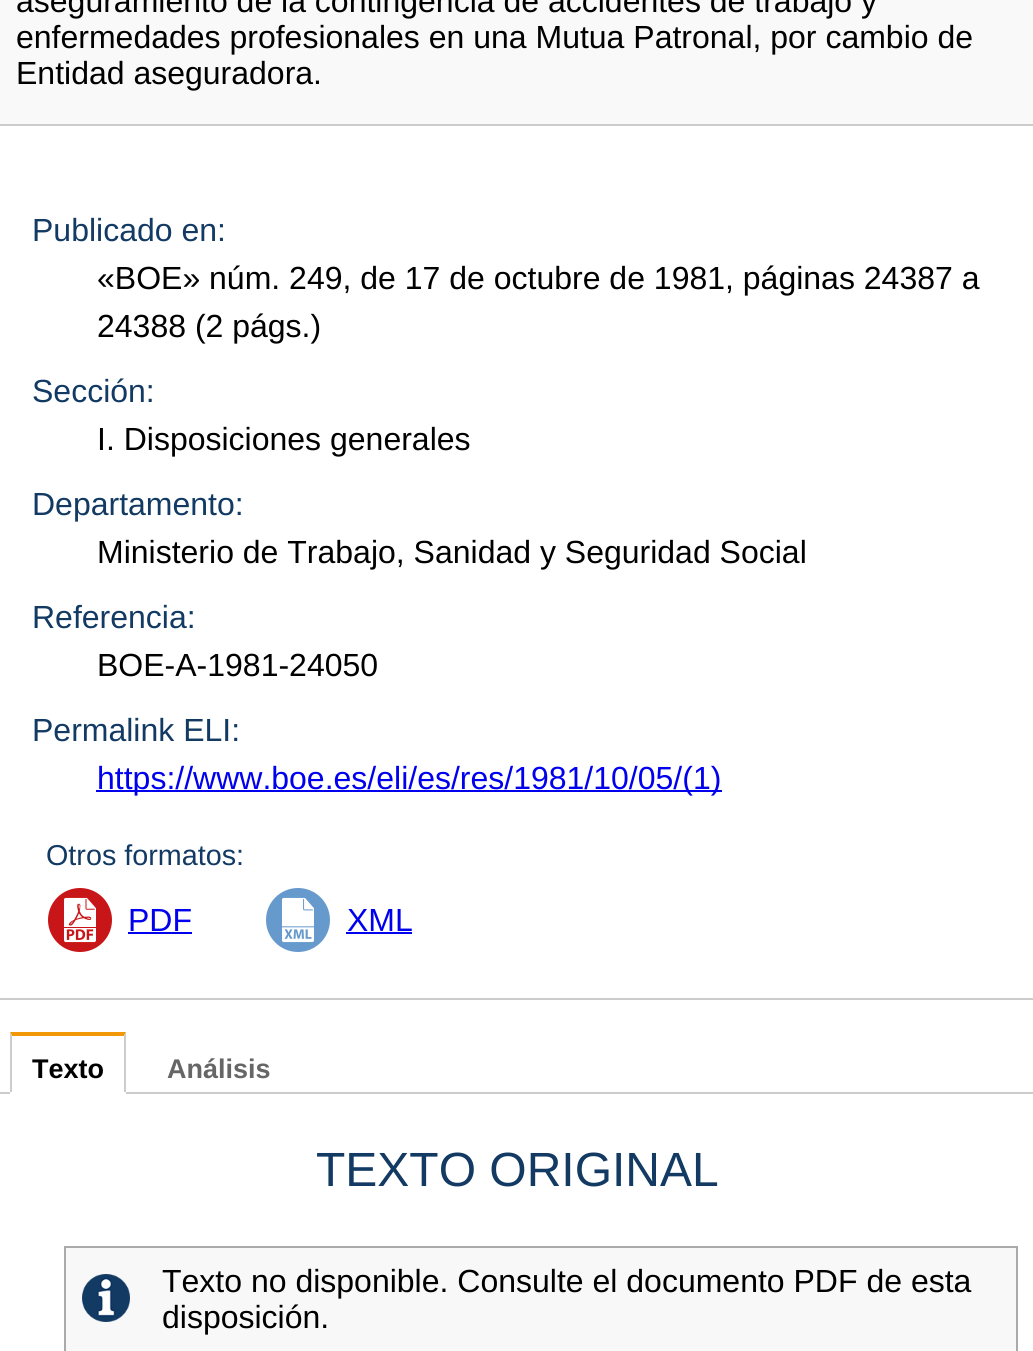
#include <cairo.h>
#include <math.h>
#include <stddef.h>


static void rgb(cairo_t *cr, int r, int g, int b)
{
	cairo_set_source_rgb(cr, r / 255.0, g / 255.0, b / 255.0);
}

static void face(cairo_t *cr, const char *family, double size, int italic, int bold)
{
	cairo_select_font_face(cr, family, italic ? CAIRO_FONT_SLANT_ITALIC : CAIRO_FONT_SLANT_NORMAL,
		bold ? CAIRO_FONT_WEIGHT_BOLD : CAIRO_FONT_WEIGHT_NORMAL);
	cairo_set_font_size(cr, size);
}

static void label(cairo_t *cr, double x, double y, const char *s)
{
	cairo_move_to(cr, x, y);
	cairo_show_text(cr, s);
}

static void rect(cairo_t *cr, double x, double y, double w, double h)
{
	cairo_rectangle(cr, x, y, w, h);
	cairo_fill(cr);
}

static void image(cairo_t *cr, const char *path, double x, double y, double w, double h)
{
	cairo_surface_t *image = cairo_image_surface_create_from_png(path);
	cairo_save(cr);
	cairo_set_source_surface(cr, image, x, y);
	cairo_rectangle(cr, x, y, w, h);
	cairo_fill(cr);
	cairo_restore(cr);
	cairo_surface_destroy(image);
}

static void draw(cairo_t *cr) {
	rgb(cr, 255, 255, 255);
	cairo_paint(cr);
	rgb(cr, 204, 204, 204);
	rect(cr, 0, 998, 1033, 2);
	rgb(cr, 249, 249, 249);
	rect(cr, 0, 0, 1033, 124);
	rgb(cr, 204, 204, 204);
	rect(cr, 0, 124, 1033, 2);
	face(cr, "Liberation Sans", 32, 0, 0);
	rgb(cr, 0, 0, 0);
	label(cr, 16, 12, "aseguramiento de la contingencia de accidentes de trabajo y");
	label(cr, 16, 48, "enfermedades profesionales en una Mutua Patronal, por cambio de");
	label(cr, 16, 84, "Entidad aseguradora.");
	rgb(cr, 18, 58, 99);
	label(cr, 32, 241, "Publicado en:");
	rgb(cr, 0, 0, 0);
	label(cr, 97, 289, "«BOE» núm. 249, de 17 de octubre de 1981, páginas 24387 a");
	label(cr, 97, 337, "24388 (2 págs.)");
	rgb(cr, 18, 58, 99);
	label(cr, 32, 402, "Sección:");
	rgb(cr, 0, 0, 0);
	label(cr, 97, 450, "I. Disposiciones generales");
	rgb(cr, 18, 58, 99);
	label(cr, 32, 515, "Departamento:");
	rgb(cr, 0, 0, 0);
	label(cr, 97, 563, "Ministerio de Trabajo, Sanidad y Seguridad Social");
	rgb(cr, 18, 58, 99);
	label(cr, 32, 628, "Referencia:");
	rgb(cr, 0, 0, 0);
	label(cr, 97, 676, "BOE-A-1981-24050");
	rgb(cr, 18, 58, 99);
	label(cr, 32, 741, "Permalink ELI:");
	rgb(cr, 0, 0, 238);
	rect(cr, 96, 790, 626, 2);
	label(cr, 97, 789, "https://www.boe.es/eli/es/res/1981/10/05/(1)");
	face(cr, "Liberation Sans", 28.75, 0, 0);
	rgb(cr, 18, 58, 99);
	label(cr, 46, 865, "Otros formatos:");
	image(cr, "image0.png", 48, 888, 64, 64);
	face(cr, "Liberation Sans", 32, 0, 0);
	rgb(cr, 0, 0, 238);
	label(cr, 128, 931, "PDF");
	rect(cr, 128, 932, 64, 2);
	image(cr, "image1.png", 266, 888, 64, 64);
	label(cr, 347, 931, "XML");
	rect(cr, 346, 932, 66, 2);
	rgb(cr, 204, 204, 204);
	rect(cr, 0, 1092, 1033, 2);
	rgb(cr, 255, 255, 255);
	rect(cr, 10, 1092, 116, 2);
	rgb(cr, 242, 151, 8);
	cairo_new_path(cr);
	cairo_move_to(cr, 10, 1032);
	cairo_line_to(cr, 126, 1032);
	cairo_line_to(cr, 124, 1036);
	cairo_line_to(cr, 12, 1036);
	cairo_close_path(cr);
	cairo_fill(cr);
	rgb(cr, 204, 204, 204);
	cairo_new_path(cr);
	cairo_move_to(cr, 126, 1032);
	cairo_line_to(cr, 126, 1092);
	cairo_line_to(cr, 124, 1092);
	cairo_line_to(cr, 124, 1036);
	cairo_close_path(cr);
	cairo_fill(cr);
	cairo_new_path(cr);
	cairo_move_to(cr, 10, 1092);
	cairo_line_to(cr, 10, 1032);
	cairo_line_to(cr, 12, 1036);
	cairo_line_to(cr, 12, 1092);
	cairo_close_path(cr);
	cairo_fill(cr);
	face(cr, "Liberation Sans", 27, 0, 1);
	rgb(cr, 0, 0, 0);
	label(cr, 32, 1078, "Texto");
	rgb(cr, 102, 102, 102);
	label(cr, 167, 1078, "Análisis");
	face(cr, "Liberation Sans", 48, 0, 0);
	rgb(cr, 18, 58, 99);
	label(cr, 316, 1186, "TEXTO ORIGINAL");
	rgb(cr, 248, 248, 248);
	rect(cr, 66, 1248, 950, 103);
	image(cr, "image2.png", 82, 1274, 48, 48);
	cairo_rectangle(cr, 65, 1247, 952, 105);
	rgb(cr, 170, 170, 170);
	cairo_stroke(cr);
	face(cr, "Liberation Sans", 32, 0, 0);
	rgb(cr, 0, 0, 0);
	label(cr, 162, 1292, "Texto no disponible. Consulte el documento PDF de esta");
	label(cr, 162, 1328, "disposición.");
}

int main(void) {
	cairo_surface_t *surface = cairo_image_surface_create(CAIRO_FORMAT_RGB24, 1033, 1351);
	cairo_t *cr = cairo_create(surface);
	cairo_font_options_t *options = cairo_font_options_create();
	cairo_font_options_set_hint_metrics(options, CAIRO_HINT_METRICS_OFF);
	cairo_font_options_set_hint_style(options, CAIRO_HINT_STYLE_NONE);
	cairo_set_font_options(cr, options);
	cairo_set_miter_limit(cr, 4);
	draw(cr);
	cairo_surface_write_to_png(surface, "render.png");
	cairo_font_options_destroy(options);
	cairo_destroy(cr);
	cairo_surface_destroy(surface);
	return 0;
}
